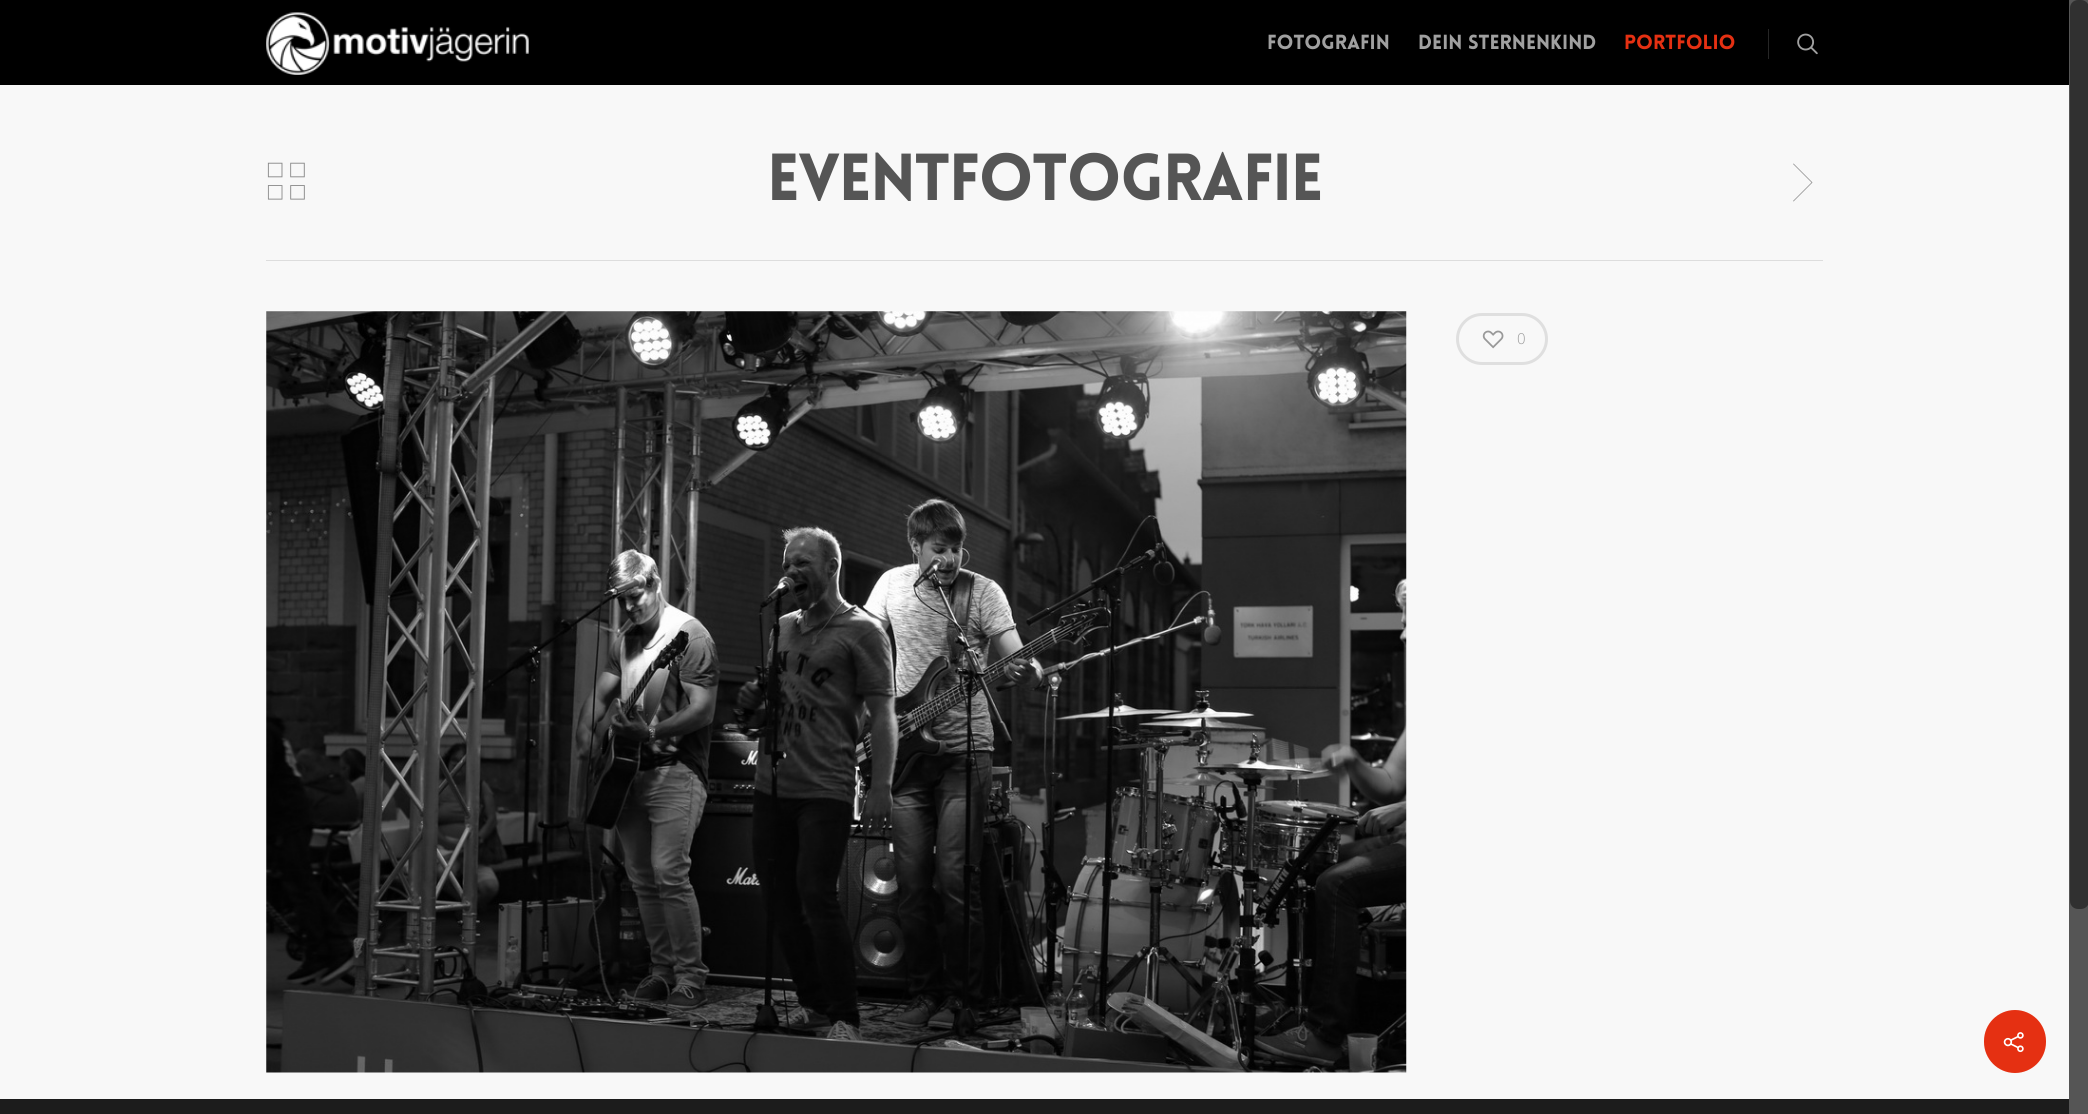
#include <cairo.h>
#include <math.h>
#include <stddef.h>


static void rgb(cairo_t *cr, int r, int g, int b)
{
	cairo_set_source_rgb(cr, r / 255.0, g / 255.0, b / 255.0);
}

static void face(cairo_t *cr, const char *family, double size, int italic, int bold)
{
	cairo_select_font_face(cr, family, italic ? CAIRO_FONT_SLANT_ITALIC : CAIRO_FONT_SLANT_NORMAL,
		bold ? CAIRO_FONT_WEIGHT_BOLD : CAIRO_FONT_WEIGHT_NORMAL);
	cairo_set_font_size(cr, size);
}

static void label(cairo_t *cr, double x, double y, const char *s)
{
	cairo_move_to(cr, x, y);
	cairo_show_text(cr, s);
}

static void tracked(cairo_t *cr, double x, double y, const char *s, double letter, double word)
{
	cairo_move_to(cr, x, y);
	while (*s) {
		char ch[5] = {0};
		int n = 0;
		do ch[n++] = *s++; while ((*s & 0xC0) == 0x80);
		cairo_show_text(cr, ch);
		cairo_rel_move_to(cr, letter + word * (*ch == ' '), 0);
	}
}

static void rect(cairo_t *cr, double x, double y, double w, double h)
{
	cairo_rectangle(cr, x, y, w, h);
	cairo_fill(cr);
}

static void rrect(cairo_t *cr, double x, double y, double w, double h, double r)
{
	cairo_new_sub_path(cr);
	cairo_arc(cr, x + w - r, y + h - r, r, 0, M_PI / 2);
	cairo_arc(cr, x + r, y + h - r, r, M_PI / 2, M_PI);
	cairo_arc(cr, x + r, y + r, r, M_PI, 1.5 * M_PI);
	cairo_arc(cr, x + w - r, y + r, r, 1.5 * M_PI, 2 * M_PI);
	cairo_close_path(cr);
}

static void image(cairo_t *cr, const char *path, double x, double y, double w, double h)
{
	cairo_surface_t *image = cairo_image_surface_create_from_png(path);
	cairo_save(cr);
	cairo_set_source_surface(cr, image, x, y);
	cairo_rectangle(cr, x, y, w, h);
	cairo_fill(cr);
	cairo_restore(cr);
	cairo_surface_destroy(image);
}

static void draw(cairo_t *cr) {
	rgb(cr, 248, 248, 248);
	cairo_paint(cr);
	rgb(cr, 0, 0, 0);
	rect(cr, 0, 0, 2069, 85);
	image(cr, "image0.png", 266, 12, 263, 63);
	face(cr, "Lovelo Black", 20, 0, 0);
	rgb(cr, 160, 160, 160);
	label(cr, 1267, 49, "FOTOGRAFIN");
	label(cr, 1418, 49, "DEIN STERNENKIND");
	rgb(cr, 229, 48, 18);
	label(cr, 1624, 49, "PORTFOLIO");
	rgb(cr, 38, 38, 38);
	rect(cr, 1768, 29, 1, 30);
	image(cr, "image1.png", 1797, 33, 21, 22);
	rgb(cr, 85, 85, 85);
	rect(cr, 2069, 0, 19, 1114);
	rgb(cr, 48, 48, 48);
	rrect(cr, 2070, 0, 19, 909, 8);
	cairo_fill(cr);
	rgb(cr, 221, 221, 221);
	rect(cr, 266, 260, 1557, 1);
	face(cr, "Lovelo Black", 65, 0, 0);
	rgb(cr, 85, 85, 85);
	tracked(cr, 767, 200, "Eventfotografie", -1.25, 0);
	image(cr, "image2.png", 267, 162, 38, 38);
	rgb(cr, 136, 136, 136);
	cairo_new_path(cr);
	cairo_move_to(cr, 1793, 164);
	cairo_line_to(cr, 1793.5, 163.5);
	cairo_line_to(cr, 1812.5, 182.5);
	cairo_line_to(cr, 1793.5, 201.5);
	cairo_line_to(cr, 1793, 201);
	cairo_line_to(cr, 1811.5, 182.5);
	cairo_close_path(cr);
	cairo_fill(cr);
	image(cr, "image3.png", 266, 311, 1141, 762);
	rrect(cr, 1457.5, 314.5, 89, 49, 24.5);
	rgb(cr, 223, 223, 223);
	cairo_set_line_width(cr, 3);
	cairo_stroke(cr);
	image(cr, "image4.png", 1482, 330, 22, 19);
	face(cr, "Open Sans Light", 15, 0, 0);
	rgb(cr, 153, 153, 153);
	label(cr, 1517, 344, "0");
	rgb(cr, 229, 48, 18);
	rrect(cr, 1984, 1010, 62, 63, 31);
	cairo_fill(cr);
	image(cr, "image5.png", 2003, 1032, 21, 21);
	rgb(cr, 28, 28, 28);
	rect(cr, 0, 1099, 2069, 15);
}

int main(void) {
	cairo_surface_t *surface = cairo_image_surface_create(CAIRO_FORMAT_RGB24, 2088, 1114);
	cairo_t *cr = cairo_create(surface);
	cairo_font_options_t *options = cairo_font_options_create();
	cairo_font_options_set_hint_metrics(options, CAIRO_HINT_METRICS_OFF);
	cairo_font_options_set_hint_style(options, CAIRO_HINT_STYLE_NONE);
	cairo_set_font_options(cr, options);
	cairo_set_miter_limit(cr, 4);
	draw(cr);
	cairo_surface_write_to_png(surface, "render.png");
	cairo_font_options_destroy(options);
	cairo_destroy(cr);
	cairo_surface_destroy(surface);
	return 0;
}
